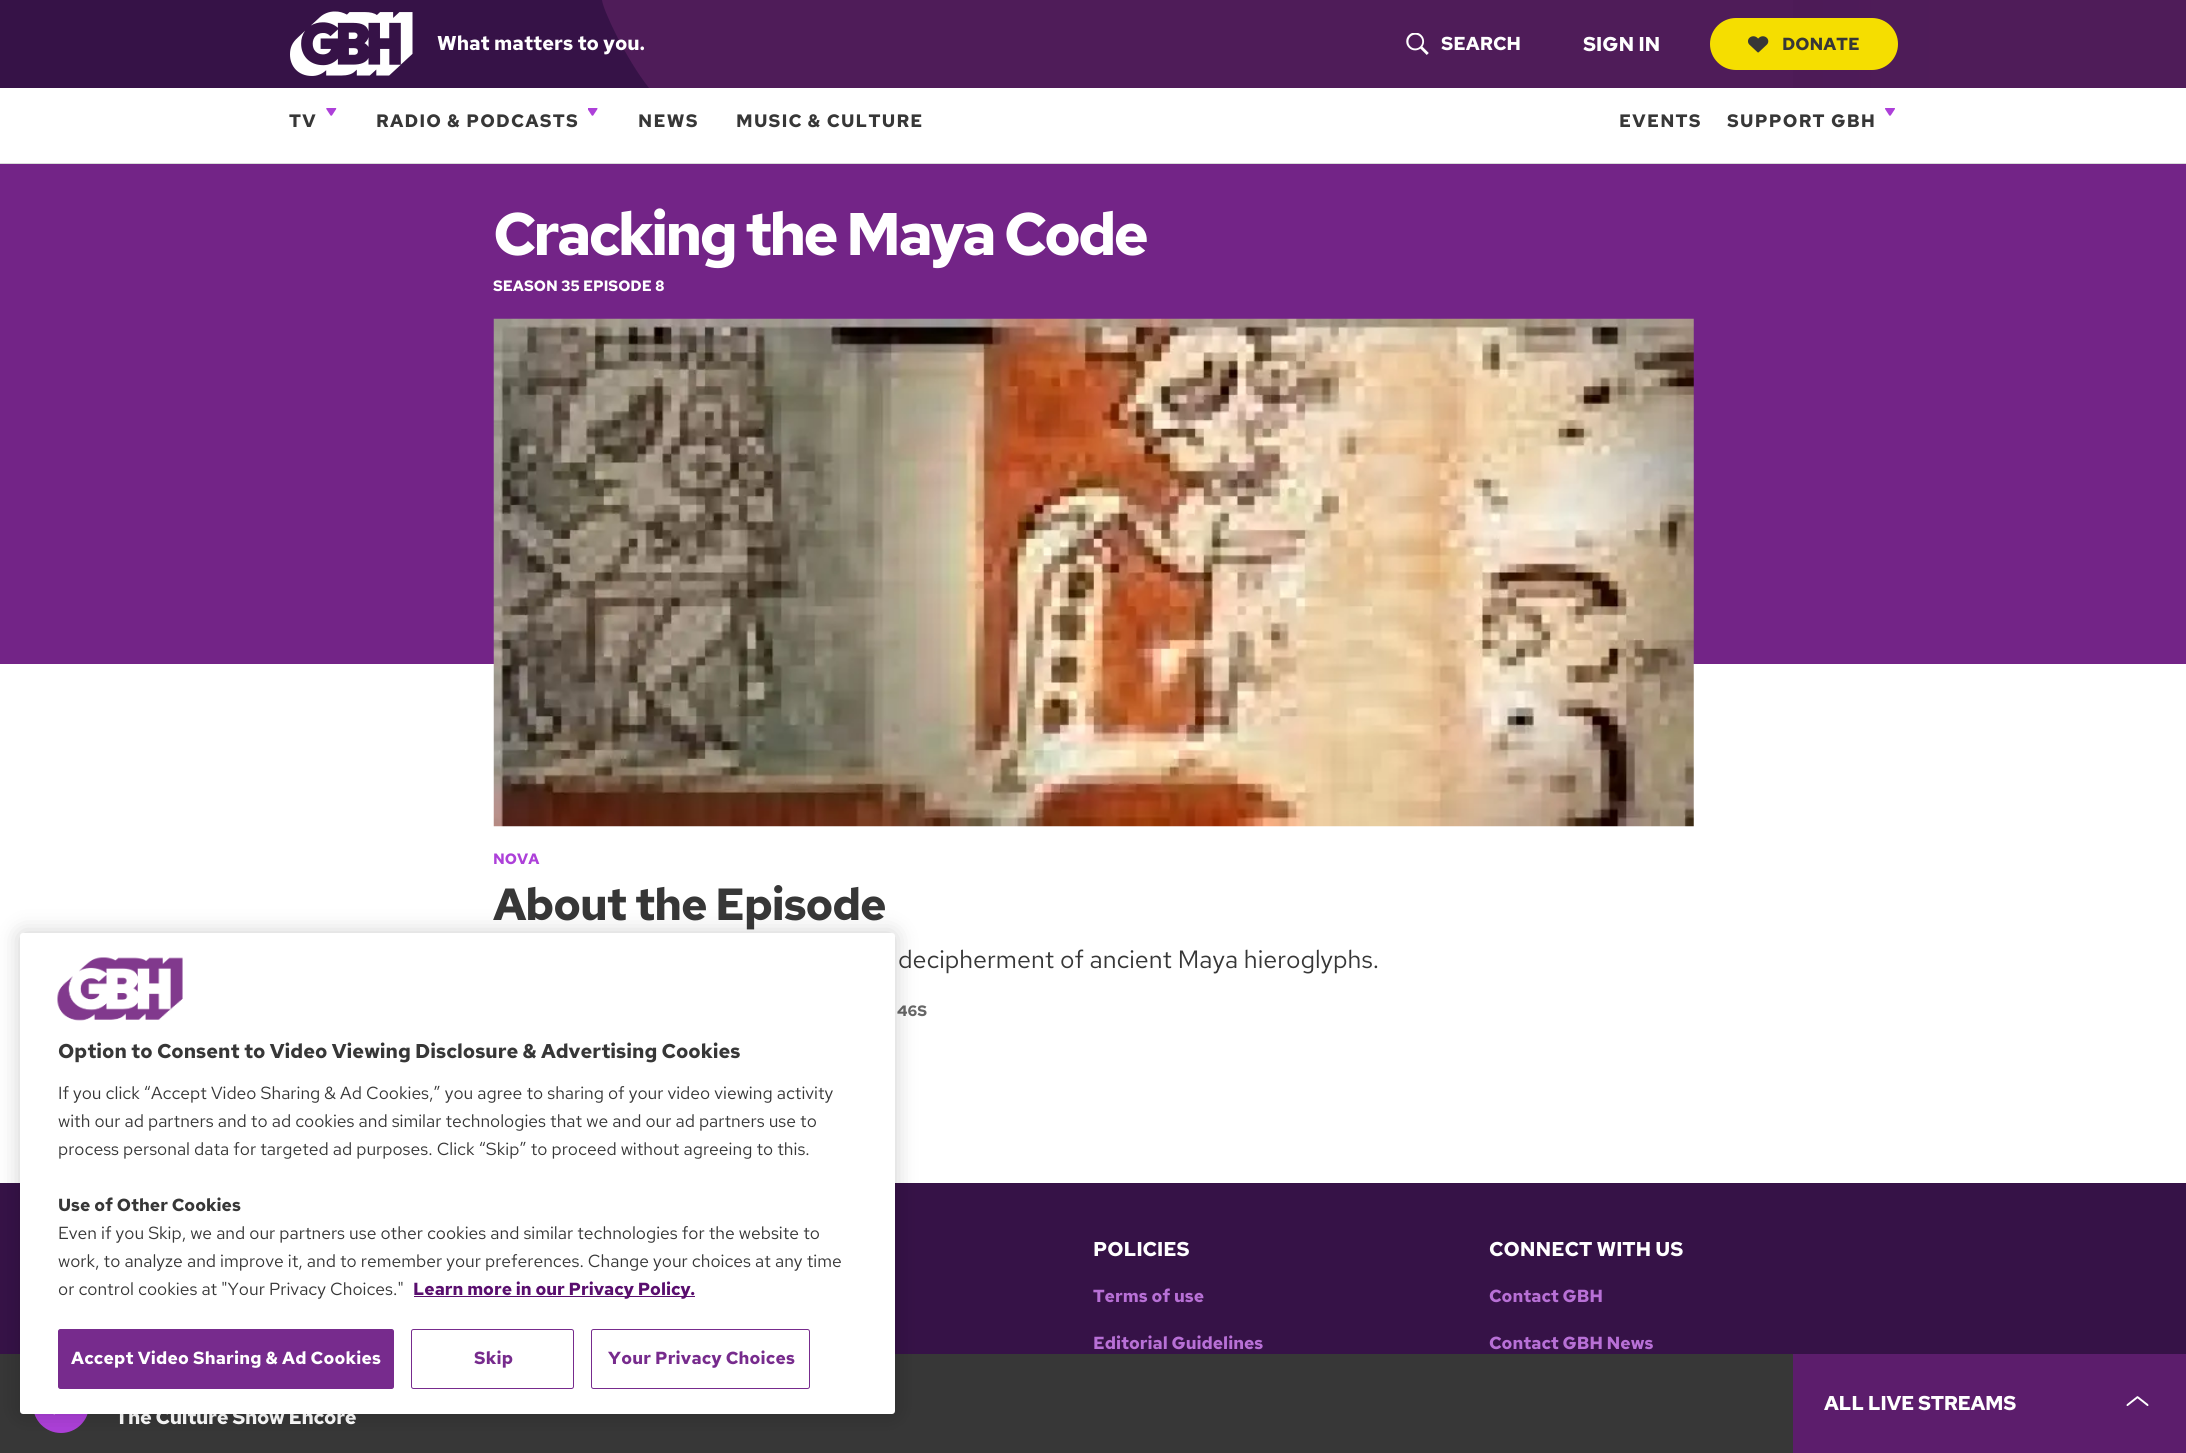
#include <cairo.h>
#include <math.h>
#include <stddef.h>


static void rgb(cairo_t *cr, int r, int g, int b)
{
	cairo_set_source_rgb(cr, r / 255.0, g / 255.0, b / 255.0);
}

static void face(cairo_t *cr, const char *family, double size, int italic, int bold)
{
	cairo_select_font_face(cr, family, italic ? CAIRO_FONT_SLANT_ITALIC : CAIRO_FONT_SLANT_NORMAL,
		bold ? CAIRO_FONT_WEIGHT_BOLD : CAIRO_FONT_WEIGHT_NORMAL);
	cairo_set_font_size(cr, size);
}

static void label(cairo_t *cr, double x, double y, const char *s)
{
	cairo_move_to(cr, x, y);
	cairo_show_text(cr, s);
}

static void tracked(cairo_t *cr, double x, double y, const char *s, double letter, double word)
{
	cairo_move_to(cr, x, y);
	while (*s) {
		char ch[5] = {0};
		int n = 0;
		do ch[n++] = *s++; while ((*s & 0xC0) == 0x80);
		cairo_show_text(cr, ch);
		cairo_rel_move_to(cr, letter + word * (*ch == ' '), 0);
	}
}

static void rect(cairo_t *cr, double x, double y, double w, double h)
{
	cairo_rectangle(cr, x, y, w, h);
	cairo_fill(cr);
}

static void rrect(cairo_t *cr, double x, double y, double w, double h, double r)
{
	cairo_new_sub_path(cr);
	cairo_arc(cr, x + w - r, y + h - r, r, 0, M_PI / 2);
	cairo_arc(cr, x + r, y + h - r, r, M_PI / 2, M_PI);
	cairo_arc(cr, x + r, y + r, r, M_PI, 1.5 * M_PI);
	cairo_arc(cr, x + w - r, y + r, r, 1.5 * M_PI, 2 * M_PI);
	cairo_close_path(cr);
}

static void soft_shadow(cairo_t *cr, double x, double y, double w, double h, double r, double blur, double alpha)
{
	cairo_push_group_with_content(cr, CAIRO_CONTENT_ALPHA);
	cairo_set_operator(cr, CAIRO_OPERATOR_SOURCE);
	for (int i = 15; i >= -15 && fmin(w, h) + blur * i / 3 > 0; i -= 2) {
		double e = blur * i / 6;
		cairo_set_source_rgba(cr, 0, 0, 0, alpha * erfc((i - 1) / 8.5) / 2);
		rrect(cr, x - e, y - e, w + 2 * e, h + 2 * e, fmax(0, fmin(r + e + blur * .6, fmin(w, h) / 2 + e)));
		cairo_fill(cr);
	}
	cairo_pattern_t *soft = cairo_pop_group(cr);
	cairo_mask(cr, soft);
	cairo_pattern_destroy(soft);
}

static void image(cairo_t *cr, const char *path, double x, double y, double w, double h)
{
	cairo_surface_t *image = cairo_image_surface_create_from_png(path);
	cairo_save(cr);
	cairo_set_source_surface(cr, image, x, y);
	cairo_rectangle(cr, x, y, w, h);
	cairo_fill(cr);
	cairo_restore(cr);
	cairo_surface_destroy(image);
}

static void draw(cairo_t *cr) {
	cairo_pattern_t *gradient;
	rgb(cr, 255, 255, 255);
	cairo_paint(cr);
	gradient = cairo_pattern_create_linear(0, 82, 2186, 82);
	cairo_pattern_add_color_stop_rgba(gradient, 0.1, 0.212, 0.071, 0.278, 1);
	cairo_pattern_add_color_stop_rgba(gradient, 0.9, 0.31, 0.11, 0.349, 1);
	cairo_set_source(cr, gradient);
	cairo_pattern_destroy(gradient);
	rect(cr, 0, 0, 2186, 88);
	rgb(cr, 79, 28, 89);
	rect(cr, 602, 0, 1191, 88);
	cairo_save(cr);
	cairo_rectangle(cr, 240, 0, 409, 88);
	cairo_clip(cr);
	rgb(cr, 54, 18, 71);
	cairo_new_path(cr);
	cairo_move_to(cr, 103, 0);
	cairo_line_to(cr, 602, 0);
	cairo_curve_to(cr, 603, 10, 626, 59, 649, 88);
	cairo_line_to(cr, 103, 88);
	cairo_close_path(cr);
	cairo_fill(cr);
	cairo_restore(cr);
	image(cr, "image0.png", 290, 11, 123, 65);
	face(cr, "Red Hat Text", 20, 0, 1);
	rgb(cr, 255, 255, 255);
	label(cr, 437, 50, "What matters to you.");
	image(cr, "image1.png", 1406, 33, 23, 22);
	face(cr, "Red Hat Text", 18.75, 0, 1);
	label(cr, 1441, 50, "SEARCH");
	face(cr, "Red Hat Text", 20, 0, 1);
	label(cr, 1583, 51, "SIGN IN");
	rgb(cr, 245, 222, 0);
	rrect(cr, 1710, 18, 188, 52, 26);
	cairo_fill(cr);
	image(cr, "image2.png", 1748, 36, 21, 17);
	face(cr, "Red Hat Text", 17.5, 0, 1);
	rgb(cr, 55, 55, 55);
	label(cr, 1782, 50, "DONATE");
	rgb(cr, 218, 218, 218);
	rect(cr, 0, 163, 2186, 1);
	image(cr, "image3.png", 326, 108, 11, 8);
	face(cr, "Red Hat Text", 18, 0, 1);
	rgb(cr, 55, 55, 55);
	tracked(cr, 289, 127, "TV", 1.25, 0);
	image(cr, "image4.png", 588, 108, 10, 8);
	tracked(cr, 376, 127, "RADIO & PODCASTS", 1.25, 0);
	tracked(cr, 638, 127, "NEWS", 1.25, 0);
	tracked(cr, 736, 127, "MUSIC & CULTURE", 1.25, 0);
	tracked(cr, 1619, 127, "EVENTS", 1.25, 0);
	image(cr, "image5.png", 1885, 108, 10, 8);
	tracked(cr, 1727, 127, "SUPPORT GBH", 1.25, 0);
	rect(cr, 0, 1354, 1793, 99);
	rgb(cr, 92, 29, 108);
	rect(cr, 1793, 1354, 393, 99);
	face(cr, "Red Hat Text", 20, 0, 1);
	rgb(cr, 255, 255, 255);
	tracked(cr, 1824, 1410, "ALL LIVE STREAMS", -0.3, 0);
	image(cr, "image6.png", 2126, 1396, 23, 10);
	rgb(cr, 173, 64, 217);
	rrect(cr, 33, 1376, 56, 57, 28);
	cairo_fill(cr);
	image(cr, "image7.png", 53, 1414, 2, 1);
	rgb(cr, 255, 255, 255);
	tracked(cr, 115, 1424, "The Culture Show Encore", -0.3, 0);
	rgb(cr, 115, 36, 135);
	rect(cr, 0, 164, 2186, 500);
	face(cr, "Red Hat Text", 60, 0, 1);
	rgb(cr, 255, 255, 255);
	tracked(cr, 493, 255, "Cracking the Maya Code", -3, 0);
	face(cr, "Red Hat Text", 15, 0, 1);
	label(cr, 493, 291, "SEASON 35 EPISODE 8");
	image(cr, "image8.png", 493, 318, 1201, 509);
	rgb(cr, 173, 64, 217);
	label(cr, 493, 864, "NOVA");
	face(cr, "Red Hat Text", 45, 0, 1);
	rgb(cr, 55, 55, 55);
	tracked(cr, 493, 920, "About the Episode", -1.1, 0);
	face(cr, "Red Hat Text", 25, 0, 0);
	label(cr, 898, 968, "decipherment of ancient Maya hieroglyphs.");
	face(cr, "Red Hat Text", 15, 0, 1);
	rgb(cr, 103, 103, 103);
	label(cr, 897, 1016, "46S");
	rgb(cr, 54, 18, 71);
	rect(cr, 0, 1183, 2186, 171);
	rgb(cr, 0, 0, 0);
	soft_shadow(cr, 20, 933, 875, 481, 3, 11, 0.2);
	rgb(cr, 255, 255, 255);
	rrect(cr, 20, 933, 875, 481, 3);
	cairo_fill(cr);
	image(cr, "image9.png", 57, 957, 126, 64);
	face(cr, "Red Hat Text", 20, 0, 1);
	rgb(cr, 55, 55, 55);
	label(cr, 58, 1058, "Option to Consent to Video Viewing Disclosure & Advertising Cookies");
	face(cr, "Red Hat Text", 17.5, 0, 0);
	label(cr, 58, 1099, "If you click “Accept Video Sharing & Ad Cookies,” you agree to sharing of your video viewing activity");
	label(cr, 58, 1127, "with our ad partners and to ad cookies and similar technologies that we and our ad partners use to");
	label(cr, 58, 1155, "process personal data for targeted ad purposes. Click “Skip” to proceed without agreeing to this.");
	face(cr, "Red Hat Text", 17.5, 0, 1);
	label(cr, 58, 1211, "Use of Other Cookies");
	face(cr, "Red Hat Text", 17.5, 0, 0);
	label(cr, 58, 1239, "Even if you Skip, we and our partners use other cookies and similar technologies for the website to");
	label(cr, 58, 1267, "work, to analyze and improve it, and to remember your preferences. Change your choices at any time");
	label(cr, 58, 1295, "or control cookies at \"Your Privacy Choices.\"");
	rgb(cr, 89, 14, 110);
	rect(cr, 414, 1296, 281, 1);
	face(cr, "Red Hat Text", 17.5, 0, 1);
	label(cr, 413, 1295, "Learn more in our Privacy Policy.");
	rgb(cr, 119, 43, 141);
	rrect(cr, 58.5, 1329.5, 335, 59, 2);
	cairo_fill_preserve(cr);
	cairo_set_line_width(cr, 1);
	cairo_stroke(cr);
	rgb(cr, 255, 255, 255);
	tracked(cr, 71, 1364, "Accept Video Sharing & Ad Cookies", 0.2, 0);
	rrect(cr, 411.5, 1329.5, 162, 59, 2);
	rgb(cr, 119, 43, 141);
	cairo_stroke(cr);
	tracked(cr, 474, 1364, "Skip", 0.2, 0);
	rrect(cr, 591.5, 1329.5, 218, 59, 2);
	cairo_stroke(cr);
	tracked(cr, 608, 1364, "Your Privacy Choices", 0.2, 0);
	face(cr, "Red Hat Text", 20, 0, 1);
	rgb(cr, 255, 255, 255);
	label(cr, 1093, 1256, "POLICIES");
	face(cr, "Red Hat Text", 17.5, 0, 1);
	rgb(cr, 184, 112, 214);
	label(cr, 1093, 1302, "Terms of use");
	label(cr, 1093, 1349, "Editorial Guidelines");
	face(cr, "Red Hat Text", 20, 0, 1);
	rgb(cr, 255, 255, 255);
	label(cr, 1489, 1256, "CONNECT WITH US");
	face(cr, "Red Hat Text", 17.5, 0, 1);
	rgb(cr, 184, 112, 214);
	label(cr, 1489, 1302, "Contact GBH");
	label(cr, 1489, 1349, "Contact GBH News");
}

int main(void) {
	cairo_surface_t *surface = cairo_image_surface_create(CAIRO_FORMAT_RGB24, 2186, 1453);
	cairo_t *cr = cairo_create(surface);
	cairo_font_options_t *options = cairo_font_options_create();
	cairo_font_options_set_hint_metrics(options, CAIRO_HINT_METRICS_OFF);
	cairo_font_options_set_hint_style(options, CAIRO_HINT_STYLE_NONE);
	cairo_set_font_options(cr, options);
	cairo_set_miter_limit(cr, 4);
	draw(cr);
	cairo_surface_write_to_png(surface, "render.png");
	cairo_font_options_destroy(options);
	cairo_destroy(cr);
	cairo_surface_destroy(surface);
	return 0;
}
